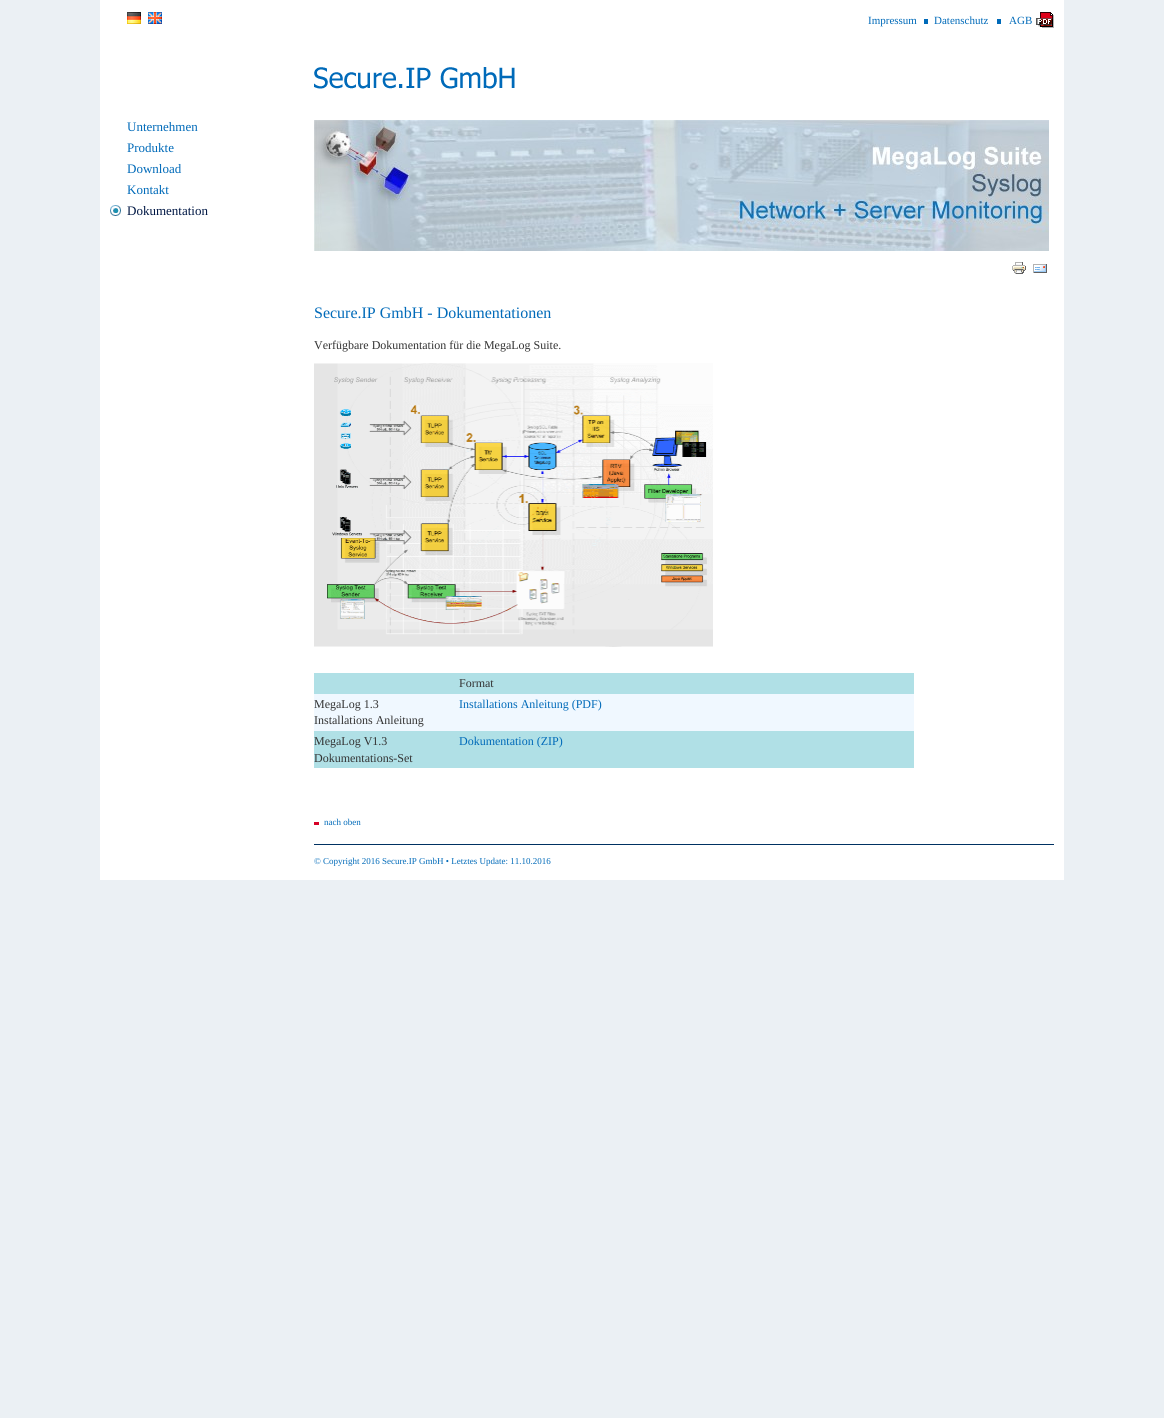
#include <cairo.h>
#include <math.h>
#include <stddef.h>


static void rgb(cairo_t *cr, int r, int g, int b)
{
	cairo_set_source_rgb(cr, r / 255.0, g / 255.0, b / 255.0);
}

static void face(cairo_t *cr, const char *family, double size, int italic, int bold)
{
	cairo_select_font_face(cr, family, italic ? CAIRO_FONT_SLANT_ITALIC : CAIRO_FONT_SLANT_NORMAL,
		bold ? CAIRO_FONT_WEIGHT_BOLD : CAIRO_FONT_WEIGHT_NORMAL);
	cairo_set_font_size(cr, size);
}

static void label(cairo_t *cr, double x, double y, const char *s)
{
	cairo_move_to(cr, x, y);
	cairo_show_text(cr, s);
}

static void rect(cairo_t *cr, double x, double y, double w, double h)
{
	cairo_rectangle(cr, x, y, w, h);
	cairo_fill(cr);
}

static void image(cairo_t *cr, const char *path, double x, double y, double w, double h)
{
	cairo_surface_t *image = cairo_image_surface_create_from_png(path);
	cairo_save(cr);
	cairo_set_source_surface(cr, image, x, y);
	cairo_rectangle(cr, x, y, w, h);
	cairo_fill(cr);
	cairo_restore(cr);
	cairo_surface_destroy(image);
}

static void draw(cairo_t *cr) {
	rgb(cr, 235, 240, 244);
	cairo_paint(cr);
	rgb(cr, 255, 255, 255);
	rect(cr, 100, 0, 964, 880);
	image(cr, "image0.png", 127, 12, 14, 12);
	image(cr, "image1.png", 148, 12, 14, 12);
	face(cr, "Liberation Serif", 11, 0, 0);
	rgb(cr, 0, 106, 185);
	label(cr, 868, 24, "Impressum");
	rect(cr, 924, 19, 4, 5);
	label(cr, 934, 24, "Datenschutz");
	rect(cr, 997, 19, 4, 5);
	image(cr, "image2.png", 1036, 12, 18, 16);
	label(cr, 1009, 24, "AGB");
	image(cr, "image3.png", 314, 67, 201, 22);
	face(cr, "Liberation Serif", 13, 0, 0);
	label(cr, 127, 131, "Unternehmen");
	label(cr, 127, 152, "Produkte");
	label(cr, 127, 173, "Download");
	label(cr, 127, 194, "Kontakt");
	image(cr, "image4.png", 110, 205, 11, 11);
	rgb(cr, 0, 23, 68);
	label(cr, 127, 215, "Dokumentation");
	rgb(cr, 0, 49, 98);
	rect(cr, 314, 844, 740, 1);
	image(cr, "image5.png", 314, 120, 735, 131);
	image(cr, "image6.png", 1012, 262, 14, 12);
	image(cr, "image7.png", 1033, 264, 14, 9);
	face(cr, "Liberation Serif", 16, 0, 0);
	rgb(cr, 0, 106, 185);
	label(cr, 314, 318, "Secure.IP GmbH - Dokumentationen");
	face(cr, "Liberation Serif", 12, 0, 0);
	rgb(cr, 51, 51, 51);
	label(cr, 314, 349, "Verfügbare Dokumentation für die MegaLog Suite.");
	image(cr, "image8.png", 314, 363, 399, 284);
	rgb(cr, 176, 224, 230);
	rect(cr, 314, 673, 600, 21);
	rgb(cr, 51, 51, 51);
	label(cr, 459, 687, "Format");
	rgb(cr, 240, 248, 255);
	rect(cr, 314, 694, 600, 37);
	rgb(cr, 51, 51, 51);
	label(cr, 314, 708, "MegaLog 1.3");
	label(cr, 314, 724, "Installations Anleitung");
	rgb(cr, 0, 106, 185);
	label(cr, 459, 708, "Installations Anleitung (PDF)");
	rgb(cr, 176, 224, 230);
	rect(cr, 314, 731, 600, 37);
	rgb(cr, 51, 51, 51);
	label(cr, 314, 745, "MegaLog V1.3");
	label(cr, 314, 762, "Dokumentations-Set");
	rgb(cr, 0, 106, 185);
	label(cr, 459, 745, "Dokumentation (ZIP)");
	face(cr, "Liberation Serif", 9, 0, 0);
	label(cr, 324, 825, "nach oben");
	rgb(cr, 214, 1, 38);
	rect(cr, 314, 822, 5, 3);
	rgb(cr, 0, 106, 185);
	label(cr, 314, 864, "© Copyright 2016 Secure.IP GmbH • Letztes Update: 11.10.2016");
}

int main(void) {
	cairo_surface_t *surface = cairo_image_surface_create(CAIRO_FORMAT_RGB24, 1164, 1418);
	cairo_t *cr = cairo_create(surface);
	cairo_font_options_t *options = cairo_font_options_create();
	cairo_font_options_set_hint_metrics(options, CAIRO_HINT_METRICS_OFF);
	cairo_font_options_set_hint_style(options, CAIRO_HINT_STYLE_NONE);
	cairo_set_font_options(cr, options);
	cairo_set_miter_limit(cr, 4);
	draw(cr);
	cairo_surface_write_to_png(surface, "render.png");
	cairo_font_options_destroy(options);
	cairo_destroy(cr);
	cairo_surface_destroy(surface);
	return 0;
}
